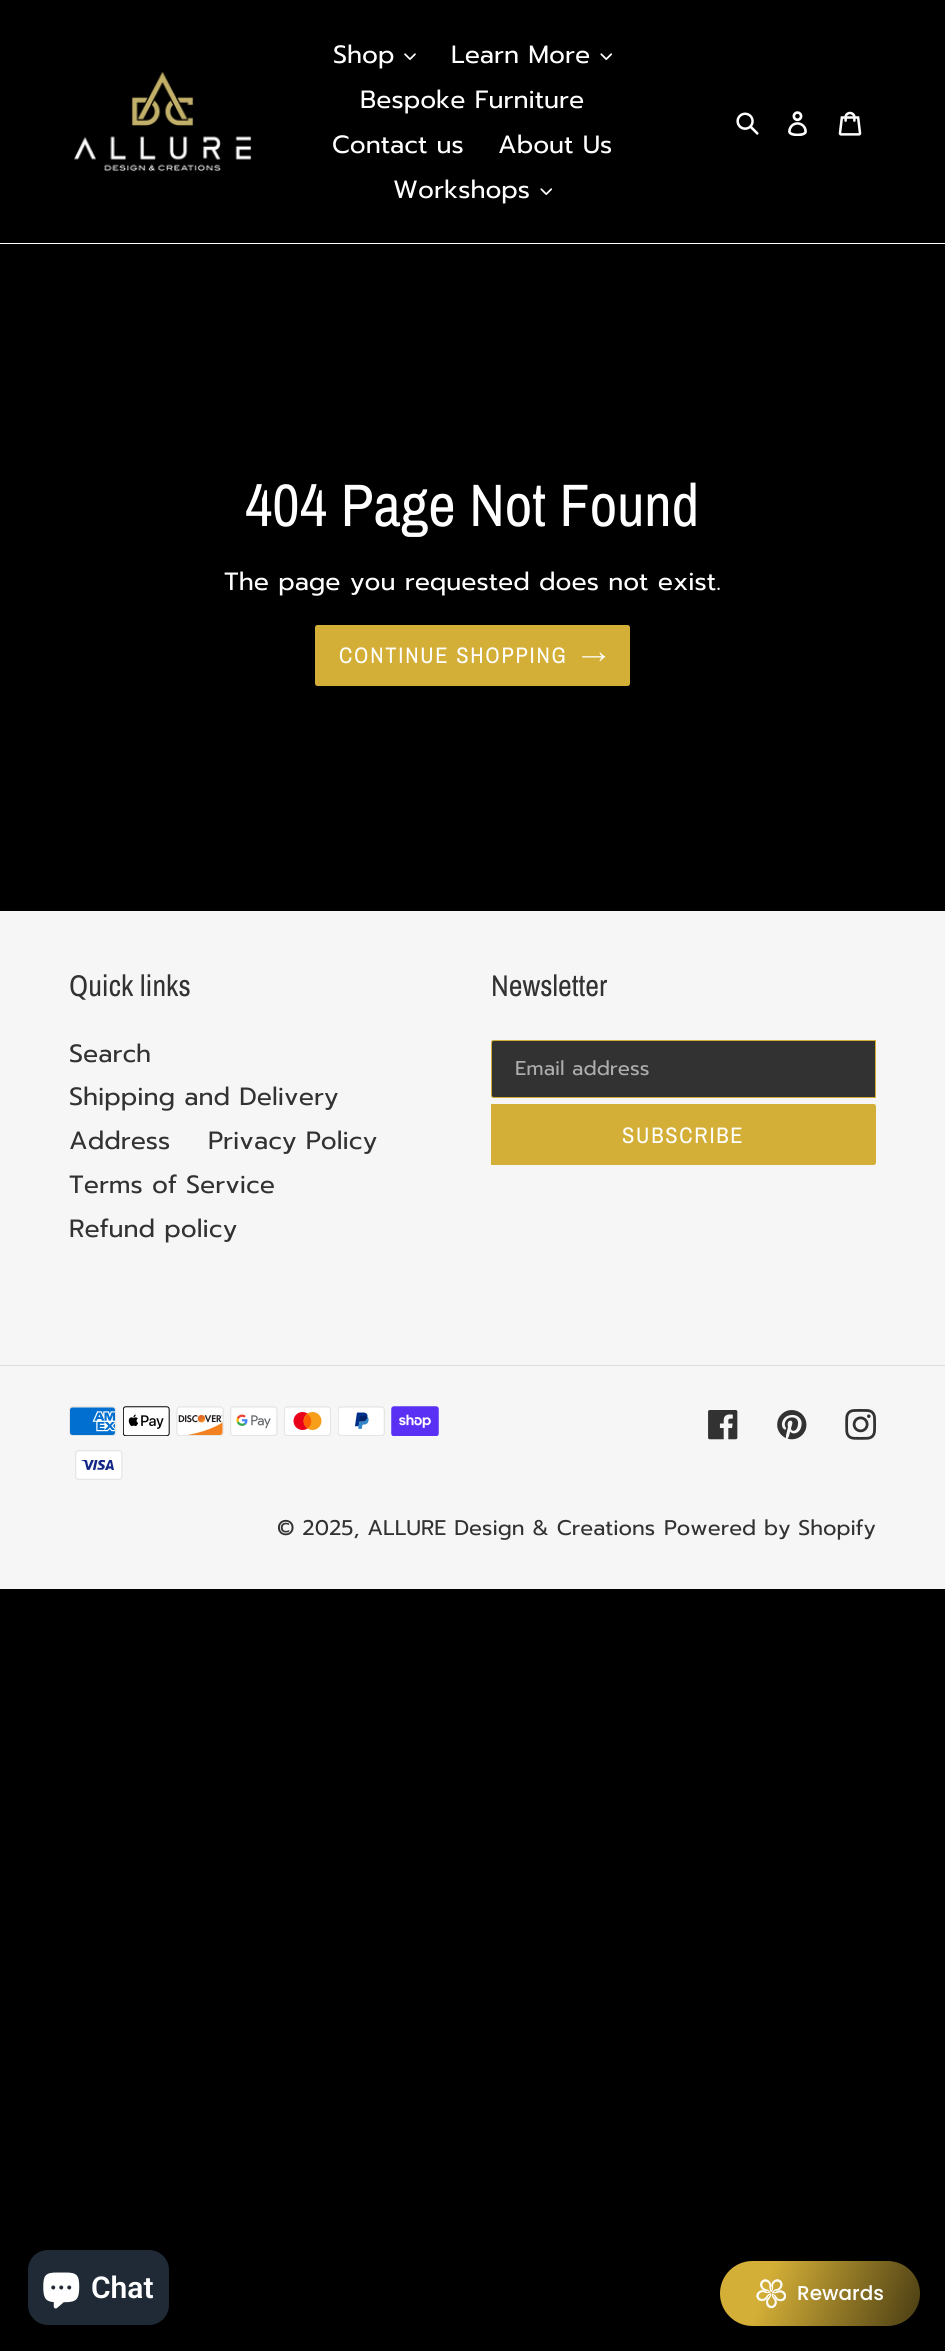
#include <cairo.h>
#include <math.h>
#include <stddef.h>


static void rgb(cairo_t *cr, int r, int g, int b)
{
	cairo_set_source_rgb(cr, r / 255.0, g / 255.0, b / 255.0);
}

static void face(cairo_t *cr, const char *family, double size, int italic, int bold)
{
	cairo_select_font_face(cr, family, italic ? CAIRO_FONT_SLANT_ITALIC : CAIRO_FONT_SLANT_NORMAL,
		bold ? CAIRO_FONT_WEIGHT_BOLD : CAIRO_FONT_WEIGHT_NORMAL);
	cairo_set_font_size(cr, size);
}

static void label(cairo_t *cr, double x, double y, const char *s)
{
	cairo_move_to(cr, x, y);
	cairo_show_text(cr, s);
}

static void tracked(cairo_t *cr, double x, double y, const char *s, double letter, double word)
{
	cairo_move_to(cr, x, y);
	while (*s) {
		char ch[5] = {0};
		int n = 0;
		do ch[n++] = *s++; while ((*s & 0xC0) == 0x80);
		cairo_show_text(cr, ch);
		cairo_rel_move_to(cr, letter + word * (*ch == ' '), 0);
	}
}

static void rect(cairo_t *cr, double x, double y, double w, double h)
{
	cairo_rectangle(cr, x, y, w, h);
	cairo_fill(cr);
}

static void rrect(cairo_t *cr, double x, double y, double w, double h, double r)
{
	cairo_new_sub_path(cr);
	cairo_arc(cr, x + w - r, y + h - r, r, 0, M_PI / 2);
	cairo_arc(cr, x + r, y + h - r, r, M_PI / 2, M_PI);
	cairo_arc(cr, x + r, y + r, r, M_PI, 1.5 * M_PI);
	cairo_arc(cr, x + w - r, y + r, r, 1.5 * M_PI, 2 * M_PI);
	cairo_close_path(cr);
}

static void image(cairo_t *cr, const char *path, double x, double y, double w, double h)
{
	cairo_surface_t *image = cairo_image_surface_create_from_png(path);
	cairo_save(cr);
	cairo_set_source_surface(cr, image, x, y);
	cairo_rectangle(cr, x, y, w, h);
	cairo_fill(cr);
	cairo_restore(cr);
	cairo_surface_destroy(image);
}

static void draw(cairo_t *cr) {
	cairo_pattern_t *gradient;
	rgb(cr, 0, 0, 0);
	cairo_paint(cr);
	rgb(cr, 255, 255, 255);
	rect(cr, 0, 243, 945, 1);
	image(cr, "image0.png", 74, 71, 178, 101);
	face(cr, "Prompt", 25, 0, 0);
	label(cr, 333, 63, "Shop");
	image(cr, "image1.png", 404, 53, 12, 7);
	label(cr, 451, 63, "Learn More");
	image(cr, "image2.png", 600, 53, 13, 7);
	label(cr, 360, 108, "Bespoke Furniture");
	label(cr, 332, 153, "Contact us");
	label(cr, 498, 153, "About Us");
	label(cr, 393, 198, "Workshops");
	image(cr, "image2.png", 540, 188, 13, 7);
	image(cr, "image3.png", 736, 112, 23, 23);
	image(cr, "image4.png", 788, 111, 19, 25);
	image(cr, "image5.png", 838, 111, 24, 25);
	face(cr, "Archivo Narrow", 60, 0, 0);
	label(cr, 245, 526, "404 Page Not Found");
	face(cr, "Prompt", 25, 0, 0);
	label(cr, 224, 590, "The page you requested does not exist.");
	rgb(cr, 212, 175, 55);
	rrect(cr, 315, 625, 315, 61, 2.5);
	cairo_fill(cr);
	face(cr, "Archivo Narrow", 22.5, 0, 0);
	rgb(cr, 255, 255, 255);
	tracked(cr, 339, 663, "CONTINUE SHOPPING", 1.75, 0);
	image(cr, "image6.png", 582, 652, 24, 10);
	rgb(cr, 246, 246, 246);
	rect(cr, 0, 911, 945, 678);
	face(cr, "Archivo Narrow", 30, 0, 0);
	rgb(cr, 51, 50, 50);
	label(cr, 69, 996, "Quick links");
	face(cr, "Prompt", 25, 0, 0);
	label(cr, 69, 1062, "Search");
	label(cr, 69, 1105, "Shipping and Delivery");
	label(cr, 69, 1149, "Address");
	label(cr, 208, 1149, "Privacy Policy");
	label(cr, 69, 1193, "Terms of Service");
	label(cr, 69, 1237, "Refund policy");
	face(cr, "Archivo Narrow", 30, 0, 0);
	label(cr, 491, 996, "Newsletter");
	cairo_new_path(cr);
	cairo_move_to(cr, 493.5, 1040.5);
	cairo_line_to(cr, 875.5, 1040.5);
	cairo_line_to(cr, 875.5, 1097.5);
	cairo_line_to(cr, 493.5, 1097.5);
	cairo_curve_to(cr, 492.5, 1097.5, 491.5, 1096.5, 491.5, 1095.5);
	cairo_line_to(cr, 491.5, 1042.5);
	cairo_curve_to(cr, 491.5, 1041.5, 492.5, 1040.5, 493.5, 1040.5);
	cairo_close_path(cr);
	cairo_fill_preserve(cr);
	rgb(cr, 212, 175, 55);
	cairo_set_line_width(cr, 1);
	cairo_stroke(cr);
	face(cr, "Prompt", 20, 0, 0);
	rgb(cr, 173, 173, 173);
	label(cr, 515, 1075, "Email address");
	rgb(cr, 212, 175, 55);
	cairo_new_path(cr);
	cairo_move_to(cr, 491, 1104);
	cairo_line_to(cr, 873.5, 1104);
	cairo_curve_to(cr, 875, 1104, 876, 1105, 876, 1106.5);
	cairo_line_to(cr, 876, 1162.5);
	cairo_curve_to(cr, 876, 1164, 875, 1165, 873.5, 1165);
	cairo_line_to(cr, 491, 1165);
	cairo_close_path(cr);
	cairo_fill(cr);
	face(cr, "Archivo Narrow", 22.5, 0, 0);
	rgb(cr, 255, 255, 255);
	tracked(cr, 622, 1143, "SUBSCRIBE", 1.75, 0);
	rgb(cr, 221, 221, 221);
	rect(cr, 0, 1365, 945, 1);
	image(cr, "image7.png", 69, 1406, 47, 30);
	image(cr, "image8.png", 123, 1406, 47, 30);
	image(cr, "image9.png", 176, 1406, 48, 30);
	image(cr, "image10.png", 230, 1406, 48, 30);
	image(cr, "image11.png", 284, 1406, 47, 30);
	image(cr, "image12.png", 338, 1406, 47, 30);
	image(cr, "image13.png", 391, 1406, 48, 30);
	image(cr, "image14.png", 75, 1450, 48, 30);
	image(cr, "image15.png", 708, 1410, 30, 30);
	image(cr, "image16.png", 777, 1410, 30, 30);
	image(cr, "image17.png", 845, 1409, 31, 31);
	face(cr, "Prompt", 21.25, 0, 0);
	rgb(cr, 51, 50, 50);
	label(cr, 277, 1535, "© 2025, ALLURE Design & Creations");
	label(cr, 664, 1535, "Powered by Shopify");
	rgb(cr, 32, 42, 54);
	rrect(cr, 28, 2250, 141, 75, 20);
	cairo_fill(cr);
	image(cr, "image18.png", 43, 2272, 37, 37);
	face(cr, "Roboto SemiBold", 30, 0, 0);
	rgb(cr, 255, 255, 255);
	label(cr, 91, 2298, "Chat");
	gradient = cairo_pattern_create_linear(721, 2259, 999, 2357);
	cairo_pattern_add_color_stop_rgba(gradient, 0.17, 0.831, 0.686, 0.216, 1);
	cairo_pattern_add_color_stop_rgba(gradient, 1, 0, 0, 0, 1);
	cairo_set_source(cr, gradient);
	cairo_pattern_destroy(gradient);
	rrect(cr, 720, 2261, 200, 65, 32.5);
	cairo_fill(cr);
	image(cr, "image19.png", 756, 2279, 30, 30);
	face(cr, "Poppins Medium", 20, 0, 0);
	rgb(cr, 255, 255, 255);
	label(cr, 797, 2300, "Rewards");
}

int main(void) {
	cairo_surface_t *surface = cairo_image_surface_create(CAIRO_FORMAT_RGB24, 945, 2351);
	cairo_t *cr = cairo_create(surface);
	cairo_font_options_t *options = cairo_font_options_create();
	cairo_font_options_set_hint_metrics(options, CAIRO_HINT_METRICS_OFF);
	cairo_font_options_set_hint_style(options, CAIRO_HINT_STYLE_NONE);
	cairo_set_font_options(cr, options);
	cairo_set_miter_limit(cr, 4);
	draw(cr);
	cairo_surface_write_to_png(surface, "render.png");
	cairo_font_options_destroy(options);
	cairo_destroy(cr);
	cairo_surface_destroy(surface);
	return 0;
}
